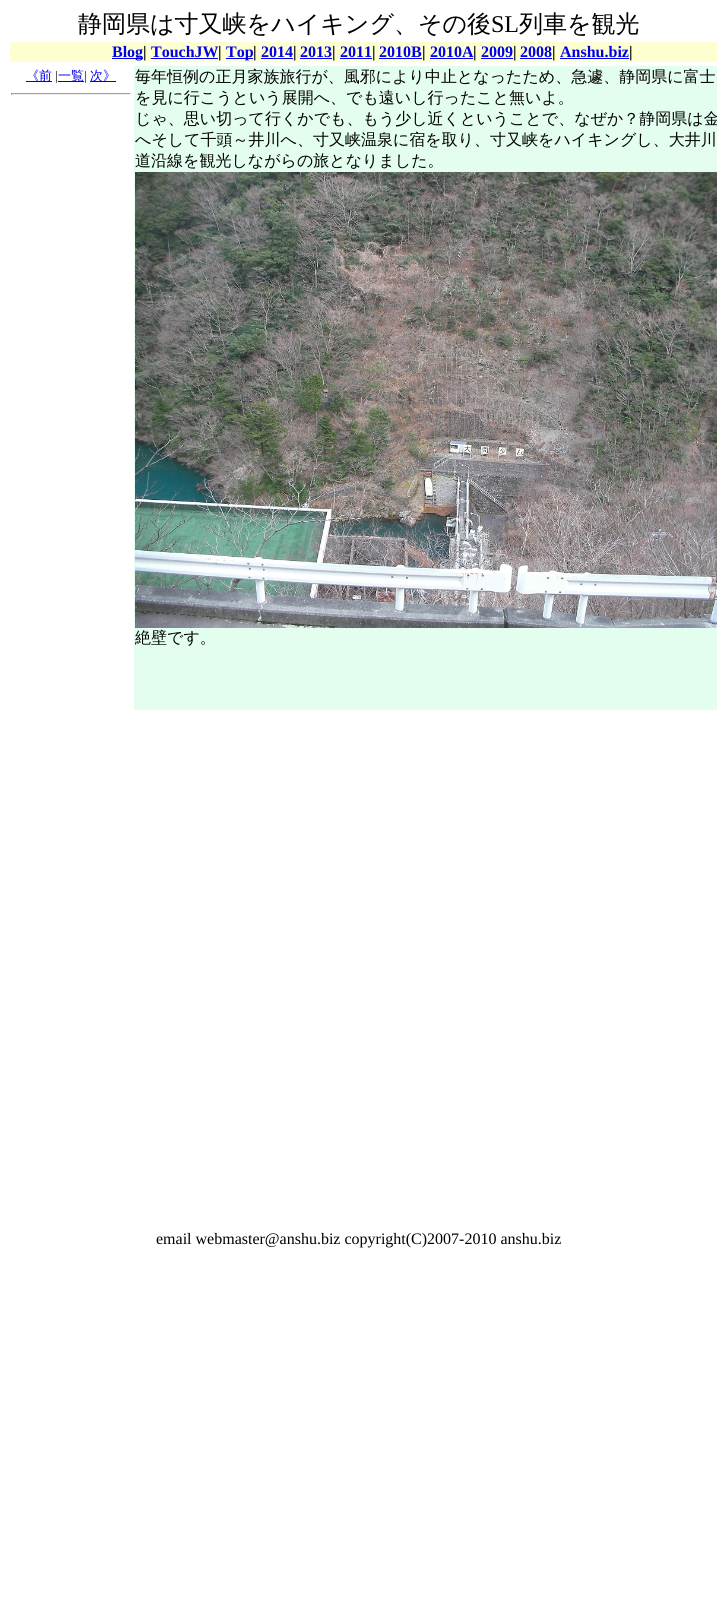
#include <cairo.h>
#include <math.h>
#include <stddef.h>


static void rgb(cairo_t *cr, int r, int g, int b)
{
	cairo_set_source_rgb(cr, r / 255.0, g / 255.0, b / 255.0);
}

static void face(cairo_t *cr, const char *family, double size, int italic, int bold)
{
	cairo_select_font_face(cr, family, italic ? CAIRO_FONT_SLANT_ITALIC : CAIRO_FONT_SLANT_NORMAL,
		bold ? CAIRO_FONT_WEIGHT_BOLD : CAIRO_FONT_WEIGHT_NORMAL);
	cairo_set_font_size(cr, size);
}

static void label(cairo_t *cr, double x, double y, const char *s)
{
	cairo_move_to(cr, x, y);
	cairo_show_text(cr, s);
}

static void rect(cairo_t *cr, double x, double y, double w, double h)
{
	cairo_rectangle(cr, x, y, w, h);
	cairo_fill(cr);
}

static void image(cairo_t *cr, const char *path, double x, double y, double w, double h)
{
	cairo_surface_t *image = cairo_image_surface_create_from_png(path);
	cairo_save(cr);
	cairo_set_source_surface(cr, image, x, y);
	cairo_rectangle(cr, x, y, w, h);
	cairo_fill(cr);
	cairo_restore(cr);
	cairo_surface_destroy(image);
}

static void draw(cairo_t *cr) {
	rgb(cr, 255, 255, 255);
	cairo_paint(cr);
	face(cr, "WenQuanYi Zen Hei Medium", 24, 0, 0);
	rgb(cr, 0, 0, 0);
	label(cr, 78, 32, "静岡県は寸又峡をハイキング、その後");
	face(cr, "Liberation Serif", 24, 0, 0);
	label(cr, 491, 32, "SL");
	face(cr, "WenQuanYi Zen Hei Medium", 24, 0, 0);
	label(cr, 519, 32, "列車を観光");
	rgb(cr, 254, 255, 208);
	rect(cr, 10, 42, 707, 20);
	rgb(cr, 0, 0, 238);
	rect(cr, 112, 58, 31, 1);
	face(cr, "Liberation Serif", 16, 0, 1);
	label(cr, 112, 57, "Blog");
	rgb(cr, 0, 0, 0);
	label(cr, 143, 57, "|");
	rgb(cr, 0, 0, 238);
	label(cr, 151, 57, "TouchJW");
	rgb(cr, 0, 0, 0);
	label(cr, 218, 57, "|");
	rgb(cr, 0, 0, 238);
	rect(cr, 151, 58, 67, 1);
	rect(cr, 226, 58, 27, 1);
	label(cr, 226, 57, "Top");
	rgb(cr, 0, 0, 0);
	label(cr, 253, 57, "|");
	rgb(cr, 0, 0, 238);
	label(cr, 261, 57, "2014");
	rgb(cr, 0, 0, 0);
	label(cr, 293, 57, "|");
	rgb(cr, 0, 0, 238);
	rect(cr, 261, 58, 32, 1);
	label(cr, 300, 57, "2013");
	rgb(cr, 0, 0, 0);
	label(cr, 332, 57, "|");
	rgb(cr, 0, 0, 238);
	rect(cr, 300, 58, 32, 1);
	label(cr, 340, 57, "2011");
	rgb(cr, 0, 0, 0);
	label(cr, 372, 57, "|");
	rgb(cr, 0, 0, 238);
	rect(cr, 340, 58, 32, 1);
	label(cr, 379, 57, "2010B");
	rgb(cr, 0, 0, 0);
	label(cr, 422, 57, "|");
	rgb(cr, 0, 0, 238);
	rect(cr, 379, 58, 43, 1);
	label(cr, 430, 57, "2010A");
	rgb(cr, 0, 0, 0);
	label(cr, 473, 57, "|");
	rgb(cr, 0, 0, 238);
	rect(cr, 430, 58, 43, 1);
	label(cr, 481, 57, "2009");
	rgb(cr, 0, 0, 0);
	label(cr, 513, 57, "|");
	rgb(cr, 0, 0, 238);
	rect(cr, 481, 58, 32, 1);
	label(cr, 520, 57, "2008");
	rgb(cr, 0, 0, 0);
	label(cr, 552, 57, "|");
	rgb(cr, 0, 0, 238);
	rect(cr, 520, 58, 32, 1);
	label(cr, 560, 57, "Anshu.biz");
	rgb(cr, 0, 0, 0);
	label(cr, 629, 57, "|");
	rgb(cr, 0, 0, 238);
	rect(cr, 560, 58, 69, 1);
	rect(cr, 26, 81, 26, 1);
	face(cr, "WenQuanYi Zen Hei Medium", 13, 0, 0);
	label(cr, 26, 80, "《前");
	face(cr, "Liberation Serif", 13, 0, 0);
	rgb(cr, 0, 0, 0);
	label(cr, 55, 80, "|");
	rgb(cr, 0, 0, 238);
	rect(cr, 58, 81, 26, 1);
	face(cr, "WenQuanYi Zen Hei Medium", 13, 0, 0);
	label(cr, 58, 80, "一覧");
	face(cr, "Liberation Serif", 13, 0, 0);
	rgb(cr, 0, 0, 0);
	label(cr, 84, 80, "|");
	rgb(cr, 0, 0, 238);
	rect(cr, 90, 81, 26, 1);
	face(cr, "WenQuanYi Zen Hei Medium", 13, 0, 0);
	label(cr, 90, 80, "次》");
	rgb(cr, 159, 159, 159);
	rect(cr, 11, 93, 120, 1);
	rgb(cr, 238, 238, 238);
	rect(cr, 130, 93, 1, 2);
	rect(cr, 11, 94, 120, 1);
	rgb(cr, 159, 159, 159);
	rect(cr, 11, 93, 1, 2);
	rgb(cr, 227, 253, 238);
	rect(cr, 134, 66, 583, 644);
	face(cr, "WenQuanYi Zen Hei Medium", 16, 0, 0);
	rgb(cr, 0, 0, 0);
	label(cr, 135, 82, "毎年恒例の正月家族旅行が、風邪により中止となったため、急遽、静岡県に富士");
	label(cr, 135, 103, "を見に行こうという展開へ、でも遠いし行ったこと無いよ。");
	label(cr, 135, 124, "じゃ、思い切って行くかでも、もう少し近くということで、なぜか？静岡県は金");
	label(cr, 135, 145, "へそして千頭～井川へ、寸又峡温泉に宿を取り、寸又峡をハイキングし、大井川");
	label(cr, 135, 166, "道沿線を観光しながらの旅となりました。");
	image(cr, "image0.png", 135, 172, 582, 456);
	label(cr, 135, 643, "絶壁です。");
	face(cr, "Liberation Serif", 16, 0, 0);
	label(cr, 156, 1244, "email webmaster@anshu.biz copyright(C)2007-2010 anshu.biz");
}

int main(void) {
	cairo_surface_t *surface = cairo_image_surface_create(CAIRO_FORMAT_RGB24, 717, 1597);
	cairo_t *cr = cairo_create(surface);
	cairo_font_options_t *options = cairo_font_options_create();
	cairo_font_options_set_hint_metrics(options, CAIRO_HINT_METRICS_OFF);
	cairo_font_options_set_hint_style(options, CAIRO_HINT_STYLE_NONE);
	cairo_set_font_options(cr, options);
	cairo_set_miter_limit(cr, 4);
	draw(cr);
	cairo_surface_write_to_png(surface, "render.png");
	cairo_font_options_destroy(options);
	cairo_destroy(cr);
	cairo_surface_destroy(surface);
	return 0;
}
